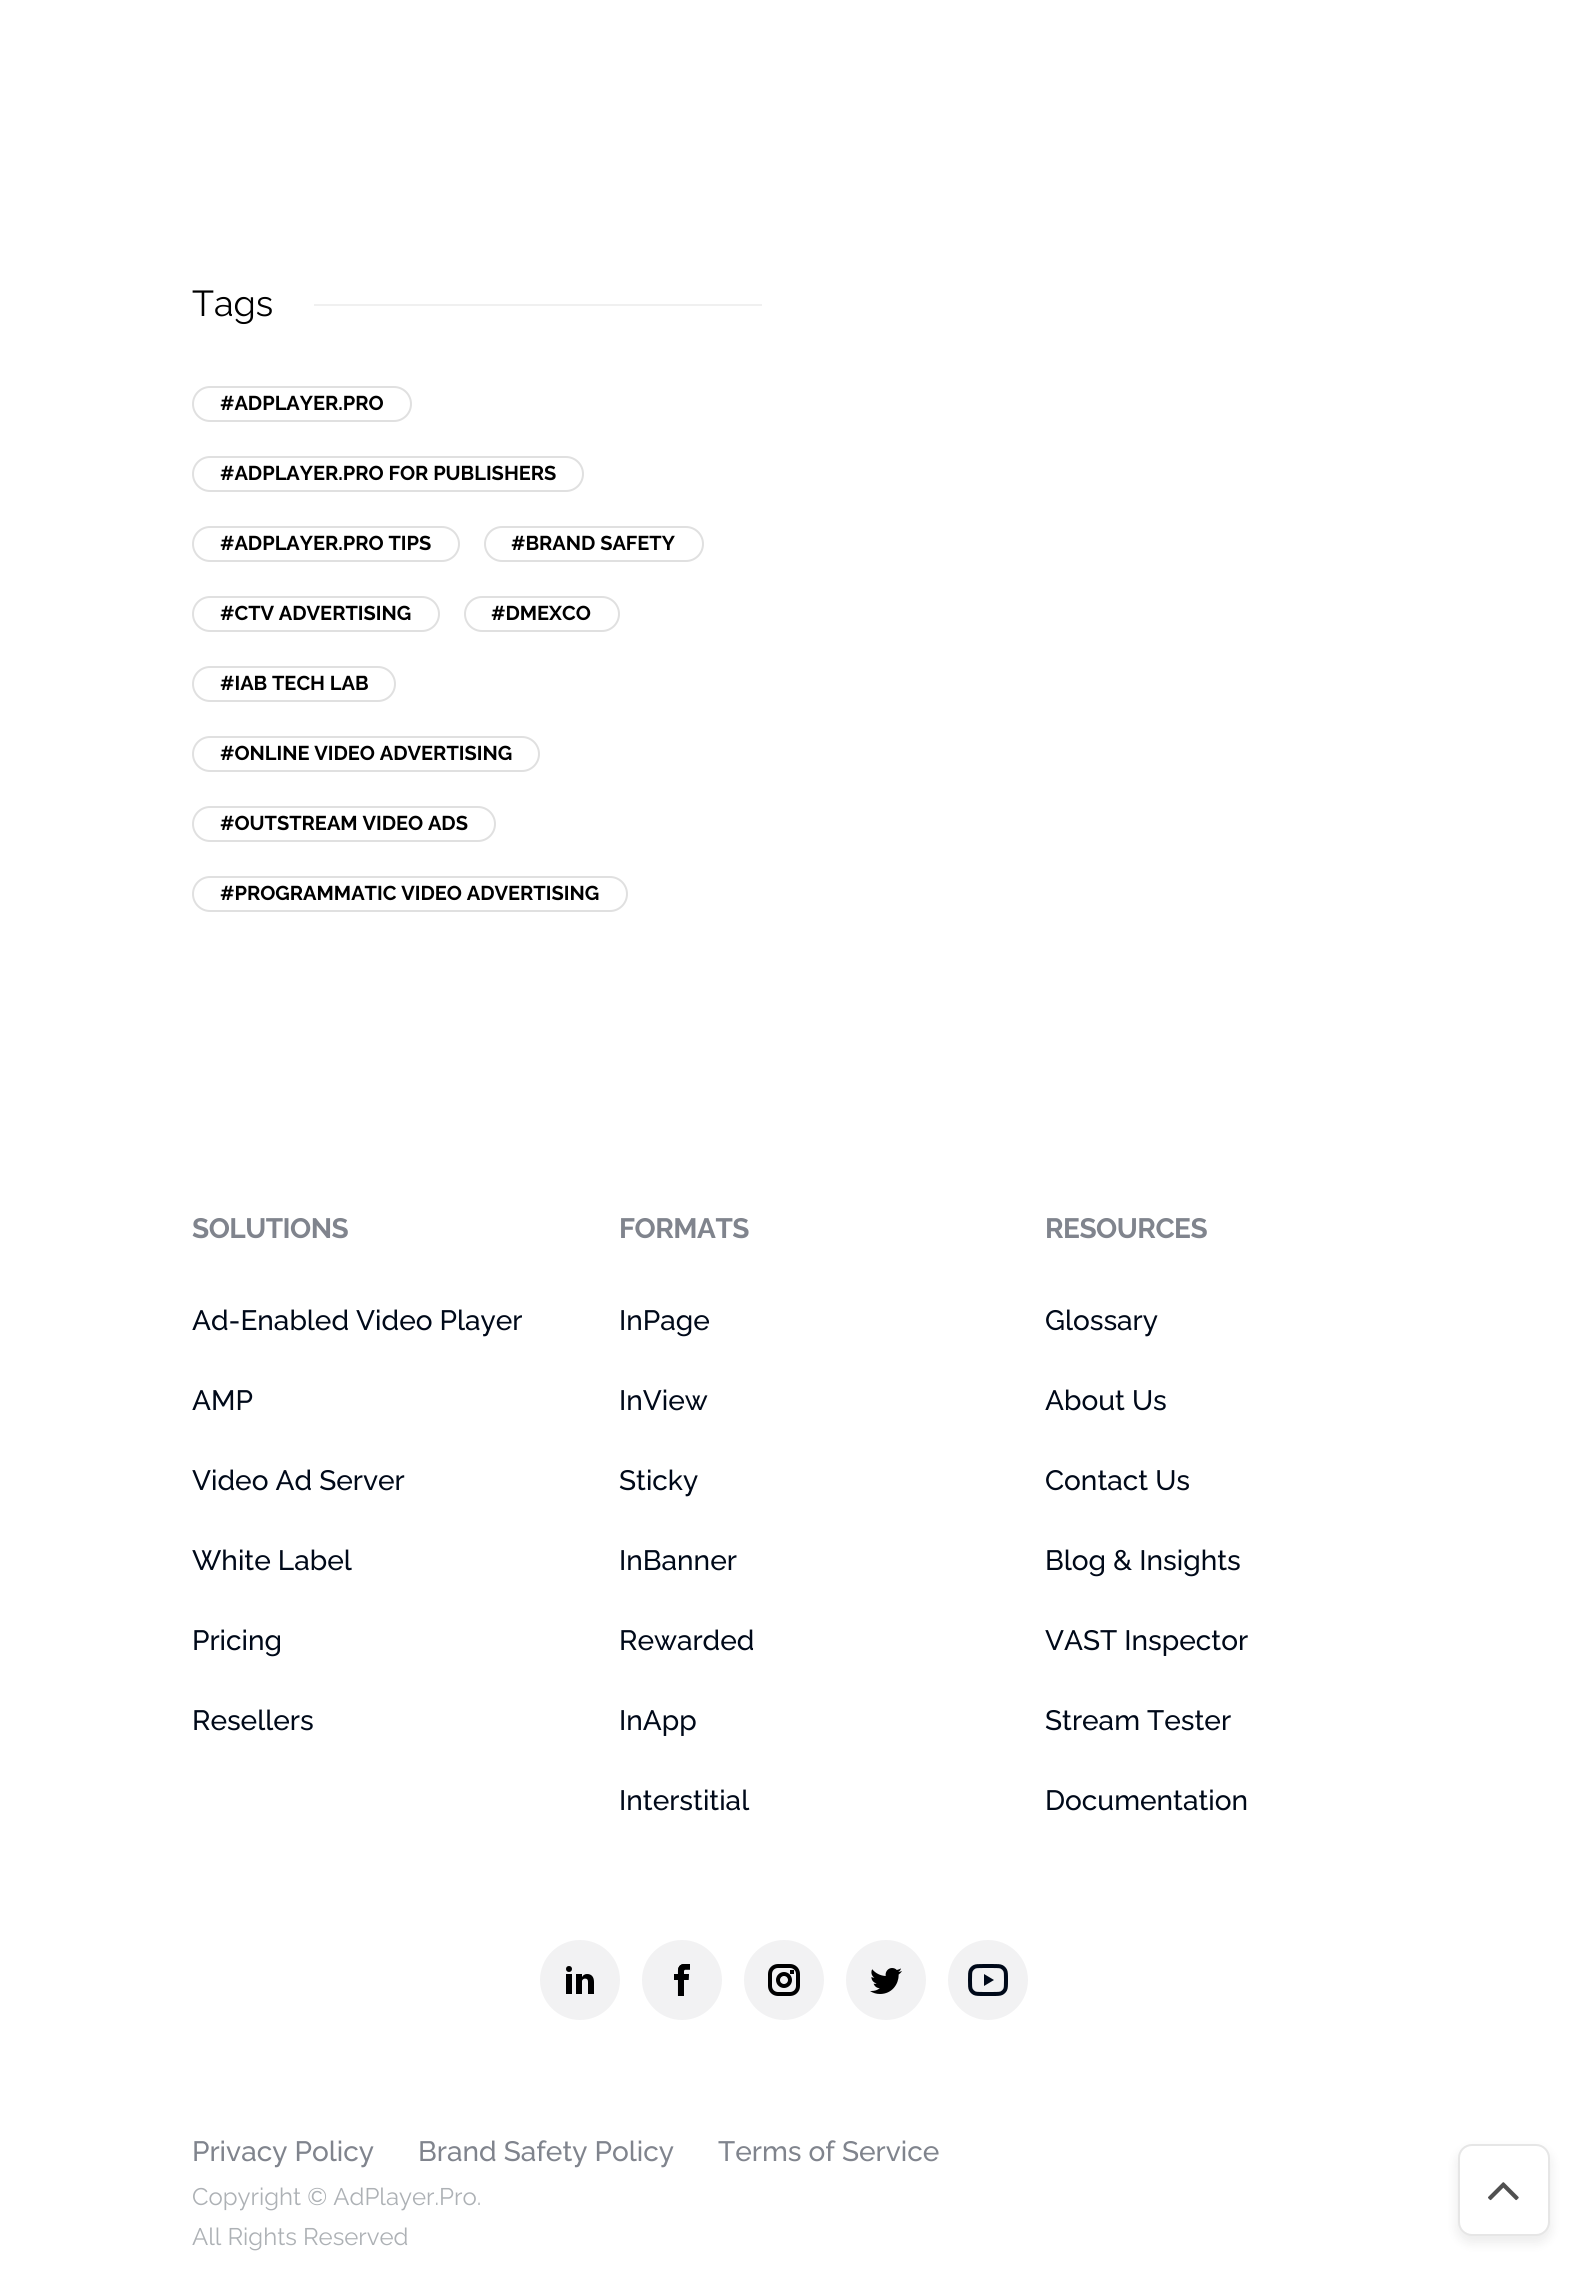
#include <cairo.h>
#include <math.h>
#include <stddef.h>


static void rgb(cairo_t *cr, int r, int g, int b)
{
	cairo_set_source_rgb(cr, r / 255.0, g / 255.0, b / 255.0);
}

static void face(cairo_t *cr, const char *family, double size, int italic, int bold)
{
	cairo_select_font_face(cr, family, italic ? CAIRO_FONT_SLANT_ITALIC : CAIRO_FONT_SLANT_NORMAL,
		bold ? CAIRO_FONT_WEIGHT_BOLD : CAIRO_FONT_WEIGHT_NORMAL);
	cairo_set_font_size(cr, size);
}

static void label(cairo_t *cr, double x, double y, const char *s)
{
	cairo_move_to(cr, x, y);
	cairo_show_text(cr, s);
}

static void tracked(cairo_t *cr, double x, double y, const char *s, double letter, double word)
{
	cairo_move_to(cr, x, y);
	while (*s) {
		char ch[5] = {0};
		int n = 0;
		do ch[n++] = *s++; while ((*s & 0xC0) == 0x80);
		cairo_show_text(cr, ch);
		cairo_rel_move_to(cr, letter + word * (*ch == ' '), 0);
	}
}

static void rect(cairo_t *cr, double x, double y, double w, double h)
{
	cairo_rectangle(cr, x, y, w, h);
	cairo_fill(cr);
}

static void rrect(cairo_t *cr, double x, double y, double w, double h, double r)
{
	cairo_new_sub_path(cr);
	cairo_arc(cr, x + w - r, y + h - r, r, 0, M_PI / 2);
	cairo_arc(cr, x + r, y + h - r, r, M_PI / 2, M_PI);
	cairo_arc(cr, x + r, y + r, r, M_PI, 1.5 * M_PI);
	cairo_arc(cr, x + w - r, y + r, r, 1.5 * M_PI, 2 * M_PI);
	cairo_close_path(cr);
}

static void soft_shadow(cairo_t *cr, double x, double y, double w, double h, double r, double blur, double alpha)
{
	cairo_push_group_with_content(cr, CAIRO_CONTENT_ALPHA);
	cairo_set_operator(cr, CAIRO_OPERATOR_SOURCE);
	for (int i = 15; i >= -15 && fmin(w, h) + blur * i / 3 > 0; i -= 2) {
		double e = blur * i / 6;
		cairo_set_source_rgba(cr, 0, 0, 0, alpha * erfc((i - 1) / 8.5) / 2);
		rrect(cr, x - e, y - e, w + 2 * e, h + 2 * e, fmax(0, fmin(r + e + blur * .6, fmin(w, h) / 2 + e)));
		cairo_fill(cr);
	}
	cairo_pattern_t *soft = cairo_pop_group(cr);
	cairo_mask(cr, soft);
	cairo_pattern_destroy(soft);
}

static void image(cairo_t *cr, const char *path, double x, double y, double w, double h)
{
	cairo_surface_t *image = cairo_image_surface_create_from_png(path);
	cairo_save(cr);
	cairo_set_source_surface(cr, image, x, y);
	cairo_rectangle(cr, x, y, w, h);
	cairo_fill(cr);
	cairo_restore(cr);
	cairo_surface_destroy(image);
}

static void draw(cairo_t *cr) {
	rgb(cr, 255, 255, 255);
	cairo_paint(cr);
	face(cr, "Raleway", 36, 0, 0);
	rgb(cr, 0, 0, 0);
	label(cr, 192, 316, "Tags");
	rgb(cr, 240, 240, 240);
	rect(cr, 314, 304, 448, 2);
	rrect(cr, 193, 387, 218, 34, 17);
	rgb(cr, 224, 224, 224);
	cairo_stroke(cr);
	face(cr, "Raleway", 20, 0, 1);
	rgb(cr, 0, 0, 0);
	label(cr, 220, 410, "#ADPLAYER.PRO");
	rrect(cr, 193, 457, 390, 34, 17);
	rgb(cr, 224, 224, 224);
	cairo_stroke(cr);
	rgb(cr, 0, 0, 0);
	label(cr, 220, 480, "#ADPLAYER.PRO FOR PUBLISHERS");
	rrect(cr, 193, 527, 266, 34, 17);
	rgb(cr, 224, 224, 224);
	cairo_stroke(cr);
	rgb(cr, 0, 0, 0);
	label(cr, 220, 550, "#ADPLAYER.PRO TIPS");
	rrect(cr, 485, 527, 218, 34, 17);
	rgb(cr, 224, 224, 224);
	cairo_stroke(cr);
	rgb(cr, 0, 0, 0);
	label(cr, 511, 550, "#BRAND SAFETY");
	rrect(cr, 193, 597, 246, 34, 17);
	rgb(cr, 224, 224, 224);
	cairo_stroke(cr);
	rgb(cr, 0, 0, 0);
	label(cr, 220, 620, "#CTV ADVERTISING");
	rrect(cr, 465, 597, 154, 34, 17);
	rgb(cr, 224, 224, 224);
	cairo_stroke(cr);
	rgb(cr, 0, 0, 0);
	label(cr, 491, 620, "#DMEXCO");
	rrect(cr, 193, 667, 202, 34, 17);
	rgb(cr, 224, 224, 224);
	cairo_stroke(cr);
	rgb(cr, 0, 0, 0);
	label(cr, 220, 690, "#IAB TECH LAB");
	rrect(cr, 193, 737, 346, 34, 17);
	rgb(cr, 224, 224, 224);
	cairo_stroke(cr);
	rgb(cr, 0, 0, 0);
	label(cr, 220, 760, "#ONLINE VIDEO ADVERTISING");
	rrect(cr, 193, 807, 302, 34, 17);
	rgb(cr, 224, 224, 224);
	cairo_stroke(cr);
	rgb(cr, 0, 0, 0);
	label(cr, 220, 830, "#OUTSTREAM VIDEO ADS");
	rrect(cr, 193, 877, 434, 34, 17);
	rgb(cr, 224, 224, 224);
	cairo_stroke(cr);
	rgb(cr, 0, 0, 0);
	label(cr, 220, 900, "#PROGRAMMATIC VIDEO ADVERTISING");
	face(cr, "Raleway", 28, 0, 1);
	rgb(cr, 128, 132, 141);
	tracked(cr, 192, 1238, "SOLUTIONS", -0.5, 0);
	face(cr, "Raleway Medium", 28, 0, 0);
	rgb(cr, 0, 9, 25);
	label(cr, 192, 1330, "Ad-Enabled Video Player");
	label(cr, 192, 1410, "AMP");
	label(cr, 192, 1490, "Video Ad Server");
	label(cr, 192, 1570, "White Label");
	label(cr, 192, 1650, "Pricing");
	label(cr, 192, 1730, "Resellers");
	face(cr, "Raleway", 28, 0, 1);
	rgb(cr, 128, 132, 141);
	tracked(cr, 619, 1238, "FORMATS", -0.5, 0);
	face(cr, "Raleway Medium", 28, 0, 0);
	rgb(cr, 0, 9, 25);
	label(cr, 619, 1330, "InPage");
	label(cr, 619, 1410, "InView");
	label(cr, 619, 1490, "Sticky");
	label(cr, 619, 1570, "InBanner");
	label(cr, 619, 1650, "Rewarded");
	label(cr, 619, 1730, "InApp");
	label(cr, 619, 1810, "Interstitial");
	face(cr, "Raleway", 28, 0, 1);
	rgb(cr, 128, 132, 141);
	tracked(cr, 1045, 1238, "RESOURCES", -0.5, 0);
	face(cr, "Raleway Medium", 28, 0, 0);
	rgb(cr, 0, 9, 25);
	label(cr, 1045, 1330, "Glossary");
	label(cr, 1045, 1410, "About Us");
	label(cr, 1045, 1490, "Contact Us");
	label(cr, 1045, 1570, "Blog & Insights");
	label(cr, 1045, 1650, "VAST Inspector");
	label(cr, 1045, 1730, "Stream Tester");
	label(cr, 1045, 1810, "Documentation");
	rgb(cr, 242, 242, 243);
	cairo_new_path(cr);
	cairo_arc(cr, 580, 1980, 40, 0, 2 * M_PI);
	cairo_fill(cr);
	image(cr, "image0.png", 566, 1966, 28, 28);
	cairo_arc(cr, 682, 1980, 40, 0, 2 * M_PI);
	cairo_fill(cr);
	image(cr, "image1.png", 674, 1964, 16, 32);
	cairo_arc(cr, 784, 1980, 40, 0, 2 * M_PI);
	cairo_fill(cr);
	image(cr, "image2.png", 768, 1964, 32, 32);
	cairo_arc(cr, 886, 1980, 40, 0, 2 * M_PI);
	cairo_fill(cr);
	image(cr, "image3.png", 870, 1968, 32, 26);
	cairo_arc(cr, 988, 1980, 40, 0, 2 * M_PI);
	cairo_fill(cr);
	image(cr, "image4.png", 968, 1964, 40, 32);
	rgb(cr, 128, 132, 141);
	label(cr, 192, 2161, "Privacy Policy");
	label(cr, 418, 2161, "Brand Safety Policy");
	label(cr, 718, 2161, "Terms of Service");
	face(cr, "Raleway", 24, 0, 0);
	rgb(cr, 173, 177, 181);
	label(cr, 192, 2205, "Copyright © AdPlayer.Pro.");
	label(cr, 192, 2245, "All Rights Reserved");
	rgb(cr, 0, 0, 0);
	soft_shadow(cr, 1456, 2148, 96, 96, 16, 5.5, 0.07);
	rgb(cr, 255, 255, 255);
	rrect(cr, 1458, 2144, 92, 92, 14);
	cairo_fill(cr);
	rrect(cr, 1459, 2145, 90, 90, 13);
	cairo_set_source_rgba(cr, 0, 0, 0, 0.1);
	cairo_stroke(cr);
	image(cr, "image5.png", 1488, 2182, 31, 19);
}

int main(void) {
	cairo_surface_t *surface = cairo_image_surface_create(CAIRO_FORMAT_RGB24, 1584, 2270);
	cairo_t *cr = cairo_create(surface);
	cairo_font_options_t *options = cairo_font_options_create();
	cairo_font_options_set_hint_metrics(options, CAIRO_HINT_METRICS_OFF);
	cairo_font_options_set_hint_style(options, CAIRO_HINT_STYLE_NONE);
	cairo_set_font_options(cr, options);
	cairo_set_miter_limit(cr, 4);
	draw(cr);
	cairo_surface_write_to_png(surface, "render.png");
	cairo_font_options_destroy(options);
	cairo_destroy(cr);
	cairo_surface_destroy(surface);
	return 0;
}
